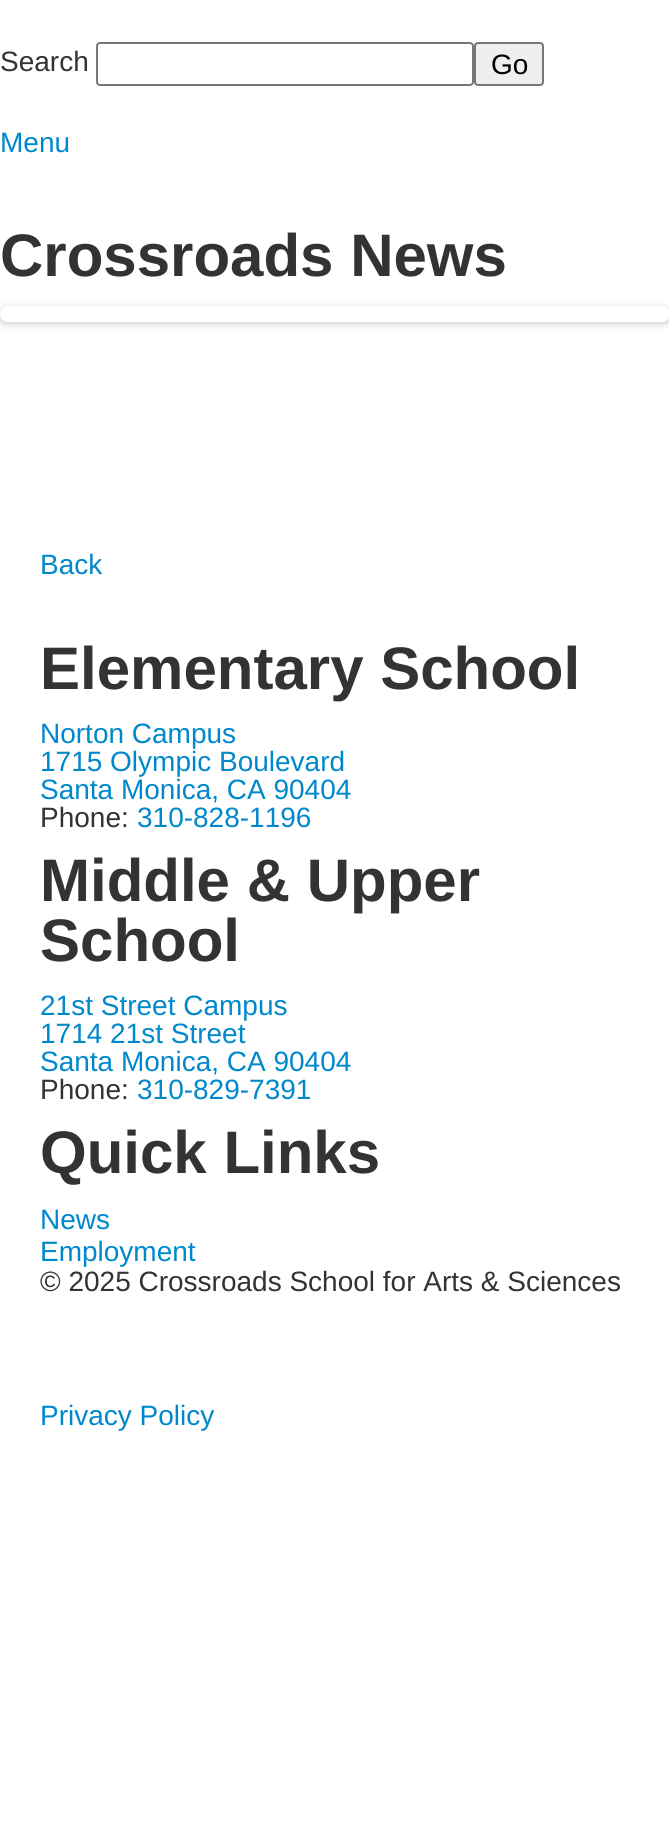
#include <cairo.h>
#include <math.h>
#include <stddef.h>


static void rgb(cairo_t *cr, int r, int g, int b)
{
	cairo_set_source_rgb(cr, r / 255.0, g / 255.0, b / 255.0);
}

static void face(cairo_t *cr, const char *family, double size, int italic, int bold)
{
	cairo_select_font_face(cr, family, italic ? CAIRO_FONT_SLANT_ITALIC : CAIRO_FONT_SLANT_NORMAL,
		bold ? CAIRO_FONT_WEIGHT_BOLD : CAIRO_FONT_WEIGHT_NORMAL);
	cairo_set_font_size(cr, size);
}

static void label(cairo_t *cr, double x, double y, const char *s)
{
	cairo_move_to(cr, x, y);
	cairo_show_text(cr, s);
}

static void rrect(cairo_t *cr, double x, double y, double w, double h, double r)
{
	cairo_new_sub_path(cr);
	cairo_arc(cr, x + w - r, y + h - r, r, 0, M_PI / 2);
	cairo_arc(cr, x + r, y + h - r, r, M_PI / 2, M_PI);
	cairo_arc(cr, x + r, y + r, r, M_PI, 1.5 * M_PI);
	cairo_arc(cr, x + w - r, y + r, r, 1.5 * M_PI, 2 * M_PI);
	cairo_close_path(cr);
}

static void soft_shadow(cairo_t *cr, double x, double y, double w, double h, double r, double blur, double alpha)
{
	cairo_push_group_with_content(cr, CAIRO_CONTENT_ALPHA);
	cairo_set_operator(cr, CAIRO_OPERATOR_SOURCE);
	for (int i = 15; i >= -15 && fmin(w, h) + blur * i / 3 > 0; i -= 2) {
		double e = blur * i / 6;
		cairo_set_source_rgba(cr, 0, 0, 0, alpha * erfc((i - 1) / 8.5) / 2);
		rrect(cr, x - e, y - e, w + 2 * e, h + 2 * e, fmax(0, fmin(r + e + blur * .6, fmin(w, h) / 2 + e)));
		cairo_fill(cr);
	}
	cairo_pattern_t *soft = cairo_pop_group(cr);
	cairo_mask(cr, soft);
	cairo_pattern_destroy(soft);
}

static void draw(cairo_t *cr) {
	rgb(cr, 255, 255, 255);
	cairo_paint(cr);
	face(cr, "Liberation Sans", 28, 0, 0);
	rgb(cr, 51, 51, 51);
	label(cr, 0, 71, "Search");
	rrect(cr, 97, 43, 376, 42, 3);
	rgb(cr, 118, 118, 118);
	cairo_stroke(cr);
	rgb(cr, 239, 239, 239);
	rrect(cr, 475, 43, 68, 42, 3);
	cairo_fill_preserve(cr);
	rgb(cr, 118, 118, 118);
	cairo_stroke(cr);
	rgb(cr, 0, 0, 0);
	label(cr, 491, 74, "Go");
	rgb(cr, 0, 136, 204);
	label(cr, 0, 152, "Menu");
	face(cr, "Liberation Sans", 60, 0, 1);
	rgb(cr, 51, 51, 51);
	label(cr, 0, 276, "Crossroads News");
	rgb(cr, 0, 0, 0);
	soft_shadow(cr, 0, 308, 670, 16, 8, 4, 0.2);
	rgb(cr, 255, 255, 255);
	rrect(cr, 0, 306, 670, 16, 8);
	cairo_fill(cr);
	face(cr, "Liberation Sans", 28, 0, 0);
	rgb(cr, 0, 136, 204);
	label(cr, 40, 574, "Back");
	face(cr, "Liberation Sans", 60, 0, 1);
	rgb(cr, 51, 51, 51);
	label(cr, 40, 689, "Elementary School");
	face(cr, "Liberation Sans", 28, 0, 0);
	rgb(cr, 0, 136, 204);
	label(cr, 40, 743, "Norton Campus");
	label(cr, 40, 771, "1715 Olympic Boulevard");
	label(cr, 40, 799, "Santa Monica, CA 90404");
	rgb(cr, 51, 51, 51);
	label(cr, 40, 827, "Phone:");
	rgb(cr, 0, 136, 204);
	label(cr, 137, 827, "310-828-1196");
	face(cr, "Liberation Sans", 60, 0, 1);
	rgb(cr, 51, 51, 51);
	label(cr, 40, 901, "Middle & Upper");
	label(cr, 40, 961, "School");
	face(cr, "Liberation Sans", 28, 0, 0);
	rgb(cr, 0, 136, 204);
	label(cr, 40, 1015, "21st Street Campus");
	label(cr, 40, 1043, "1714 21st Street");
	label(cr, 40, 1071, "Santa Monica, CA 90404");
	rgb(cr, 51, 51, 51);
	label(cr, 40, 1099, "Phone:");
	rgb(cr, 0, 136, 204);
	label(cr, 137, 1099, "310-829-7391");
	face(cr, "Liberation Sans", 60, 0, 1);
	rgb(cr, 51, 51, 51);
	label(cr, 40, 1173, "Quick Links");
	face(cr, "Liberation Sans", 28, 0, 0);
	rgb(cr, 0, 136, 204);
	label(cr, 40, 1229, "News");
	label(cr, 40, 1261, "Employment");
	rgb(cr, 51, 51, 51);
	label(cr, 40, 1291, "© 2025 Crossroads School for Arts & Sciences");
	rgb(cr, 0, 136, 204);
	label(cr, 40, 1425, "Privacy Policy");
}

int main(void) {
	cairo_surface_t *surface = cairo_image_surface_create(CAIRO_FORMAT_RGB24, 669, 1828);
	cairo_t *cr = cairo_create(surface);
	cairo_font_options_t *options = cairo_font_options_create();
	cairo_font_options_set_hint_metrics(options, CAIRO_HINT_METRICS_OFF);
	cairo_font_options_set_hint_style(options, CAIRO_HINT_STYLE_NONE);
	cairo_set_font_options(cr, options);
	cairo_set_miter_limit(cr, 4);
	draw(cr);
	cairo_surface_write_to_png(surface, "render.png");
	cairo_font_options_destroy(options);
	cairo_destroy(cr);
	cairo_surface_destroy(surface);
	return 0;
}
